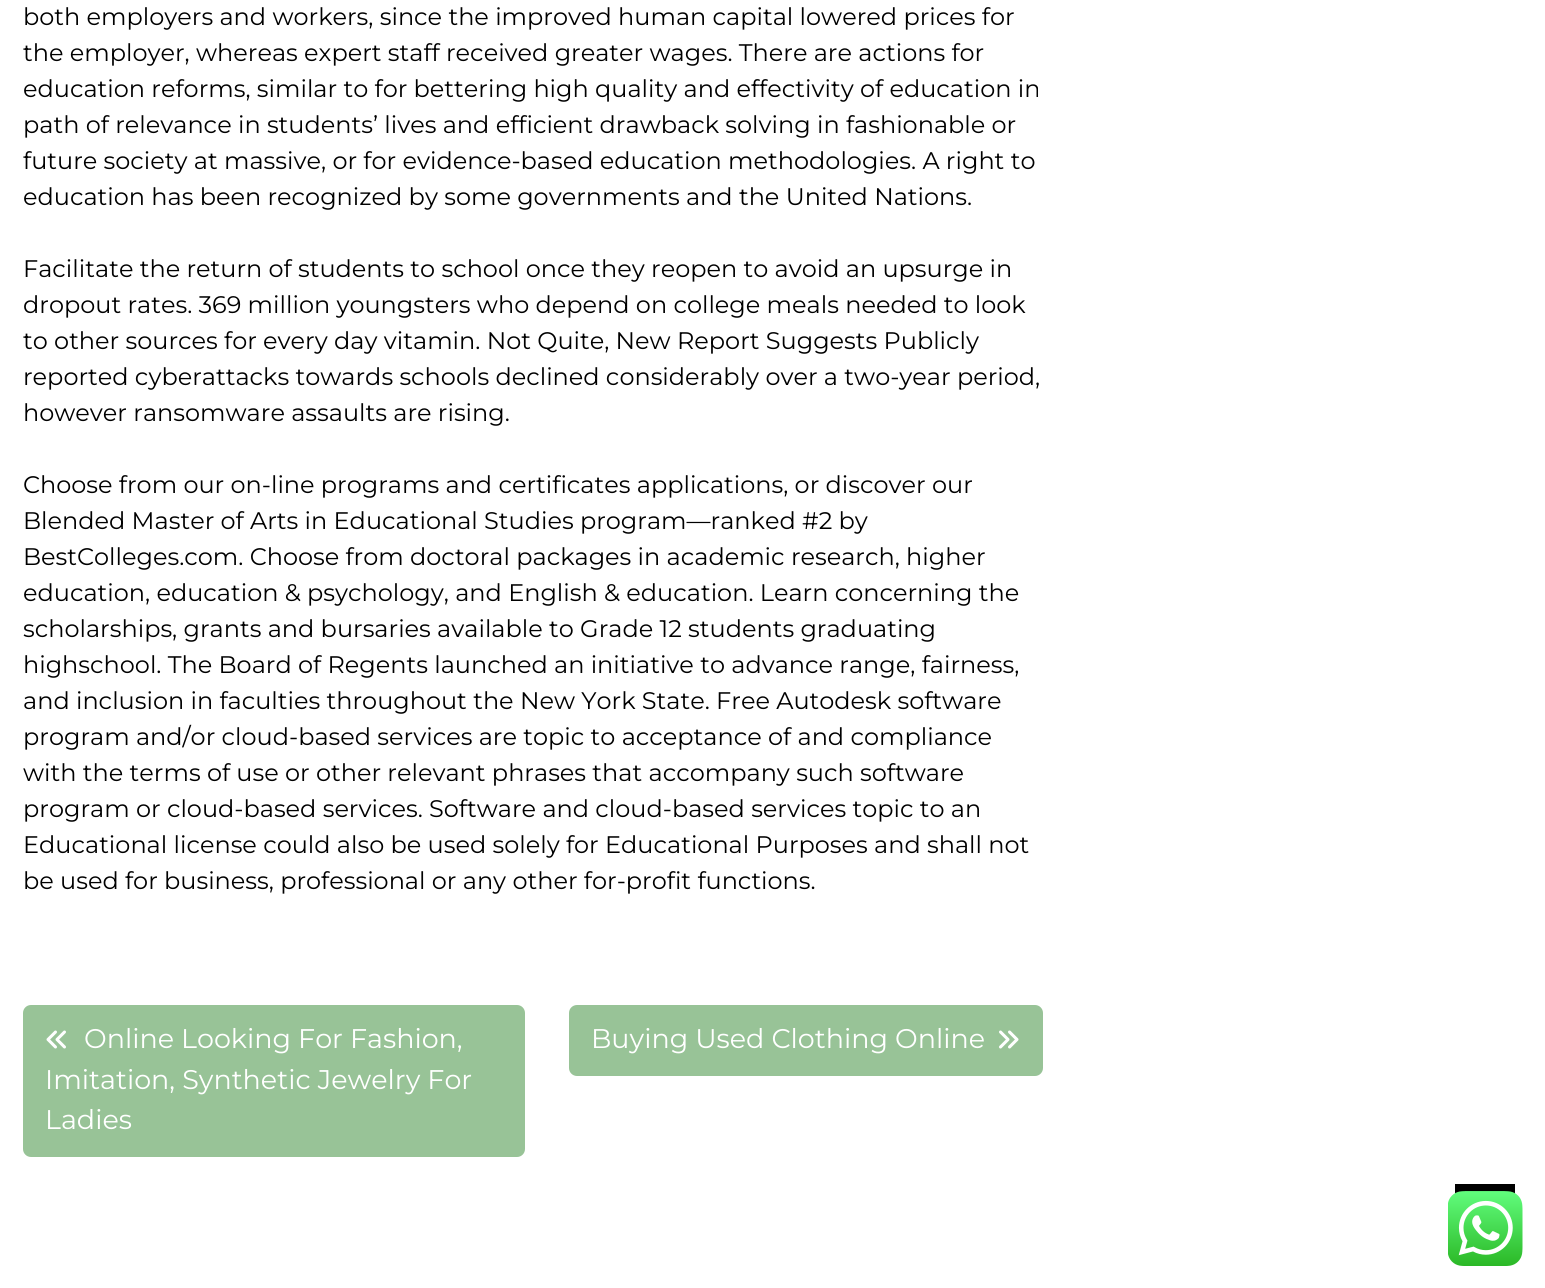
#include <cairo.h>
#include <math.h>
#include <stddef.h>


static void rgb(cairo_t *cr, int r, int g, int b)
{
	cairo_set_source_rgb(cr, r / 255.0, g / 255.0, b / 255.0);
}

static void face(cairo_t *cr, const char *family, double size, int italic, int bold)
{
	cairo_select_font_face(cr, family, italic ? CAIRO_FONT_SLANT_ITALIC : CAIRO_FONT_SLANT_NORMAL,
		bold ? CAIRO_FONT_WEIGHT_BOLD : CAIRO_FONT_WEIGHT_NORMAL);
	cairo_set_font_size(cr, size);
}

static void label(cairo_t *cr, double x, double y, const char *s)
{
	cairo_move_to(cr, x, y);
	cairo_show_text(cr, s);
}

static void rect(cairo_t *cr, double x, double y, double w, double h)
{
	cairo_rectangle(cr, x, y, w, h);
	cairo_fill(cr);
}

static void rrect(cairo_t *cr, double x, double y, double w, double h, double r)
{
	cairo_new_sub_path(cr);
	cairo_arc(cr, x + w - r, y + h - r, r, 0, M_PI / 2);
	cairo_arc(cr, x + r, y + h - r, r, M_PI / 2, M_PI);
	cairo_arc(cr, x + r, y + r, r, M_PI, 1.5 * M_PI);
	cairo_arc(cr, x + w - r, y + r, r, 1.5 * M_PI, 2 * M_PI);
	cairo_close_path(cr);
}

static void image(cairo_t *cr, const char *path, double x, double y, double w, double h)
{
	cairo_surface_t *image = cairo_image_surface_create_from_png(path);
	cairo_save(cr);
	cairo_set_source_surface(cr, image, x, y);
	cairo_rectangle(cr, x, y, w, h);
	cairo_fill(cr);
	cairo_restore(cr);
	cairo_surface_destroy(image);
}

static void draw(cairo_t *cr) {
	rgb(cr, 255, 255, 255);
	cairo_paint(cr);
	face(cr, "Montserrat Thin", 24, 0, 0);
	rgb(cr, 0, 0, 0);
	label(cr, 23, 25, "both employers and workers, since the improved human capital lowered prices for");
	label(cr, 23, 61, "the employer, whereas expert staff received greater wages. There are actions for");
	label(cr, 23, 97, "education reforms, similar to for bettering high quality and effectivity of education in");
	label(cr, 23, 133, "path of relevance in students’ lives and efficient drawback solving in fashionable or");
	label(cr, 23, 169, "future society at massive, or for evidence-based education methodologies. A right to");
	label(cr, 23, 205, "education has been recognized by some governments and the United Nations.");
	label(cr, 23, 277, "Facilitate the return of students to school once they reopen to avoid an upsurge in");
	label(cr, 23, 313, "dropout rates. 369 million youngsters who depend on college meals needed to look");
	label(cr, 23, 349, "to other sources for every day vitamin. Not Quite, New Report Suggests Publicly");
	label(cr, 23, 385, "reported cyberattacks towards schools declined considerably over a two-year period,");
	label(cr, 23, 421, "however ransomware assaults are rising.");
	label(cr, 23, 493, "Choose from our on-line programs and certificates applications, or discover our");
	label(cr, 23, 529, "Blended Master of Arts in Educational Studies program—ranked #2 by");
	label(cr, 23, 565, "BestColleges.com. Choose from doctoral packages in academic research, higher");
	label(cr, 23, 601, "education, education & psychology, and English & education. Learn concerning the");
	label(cr, 23, 637, "scholarships, grants and bursaries available to Grade 12 students graduating");
	label(cr, 23, 673, "highschool. The Board of Regents launched an initiative to advance range, fairness,");
	label(cr, 23, 709, "and inclusion in faculties throughout the New York State. Free Autodesk software");
	label(cr, 23, 745, "program and/or cloud-based services are topic to acceptance of and compliance");
	label(cr, 23, 781, "with the terms of use or other relevant phrases that accompany such software");
	label(cr, 23, 817, "program or cloud-based services. Software and cloud-based services topic to an");
	label(cr, 23, 853, "Educational license could also be used solely for Educational Purposes and shall not");
	label(cr, 23, 889, "be used for business, professional or any other for-profit functions.");
	rgb(cr, 152, 195, 151);
	rrect(cr, 23, 1005, 502, 152, 8);
	cairo_fill(cr);
	image(cr, "image0.png", 46, 1030, 20, 19);
	face(cr, "Montserrat Thin", 27, 0, 0);
	rgb(cr, 255, 255, 255);
	label(cr, 84, 1048, "Online Looking For Fashion,");
	label(cr, 45, 1089, "Imitation, Synthetic Jewelry For");
	label(cr, 45, 1129, "Ladies");
	rgb(cr, 152, 195, 151);
	rrect(cr, 569, 1005, 474, 71, 8);
	cairo_fill(cr);
	rgb(cr, 255, 255, 255);
	label(cr, 591, 1048, "Buying Used Clothing Online");
	image(cr, "image1.png", 999, 1030, 20, 19);
	rgb(cr, 0, 0, 0);
	rect(cr, 1455, 1184, 60, 10);
	image(cr, "image2.png", 1448, 1191, 75, 75);
}

int main(void) {
	cairo_surface_t *surface = cairo_image_surface_create(CAIRO_FORMAT_RGB24, 1545, 1288);
	cairo_t *cr = cairo_create(surface);
	cairo_font_options_t *options = cairo_font_options_create();
	cairo_font_options_set_hint_metrics(options, CAIRO_HINT_METRICS_OFF);
	cairo_font_options_set_hint_style(options, CAIRO_HINT_STYLE_NONE);
	cairo_set_font_options(cr, options);
	cairo_set_miter_limit(cr, 4);
	draw(cr);
	cairo_surface_write_to_png(surface, "render.png");
	cairo_font_options_destroy(options);
	cairo_destroy(cr);
	cairo_surface_destroy(surface);
	return 0;
}
